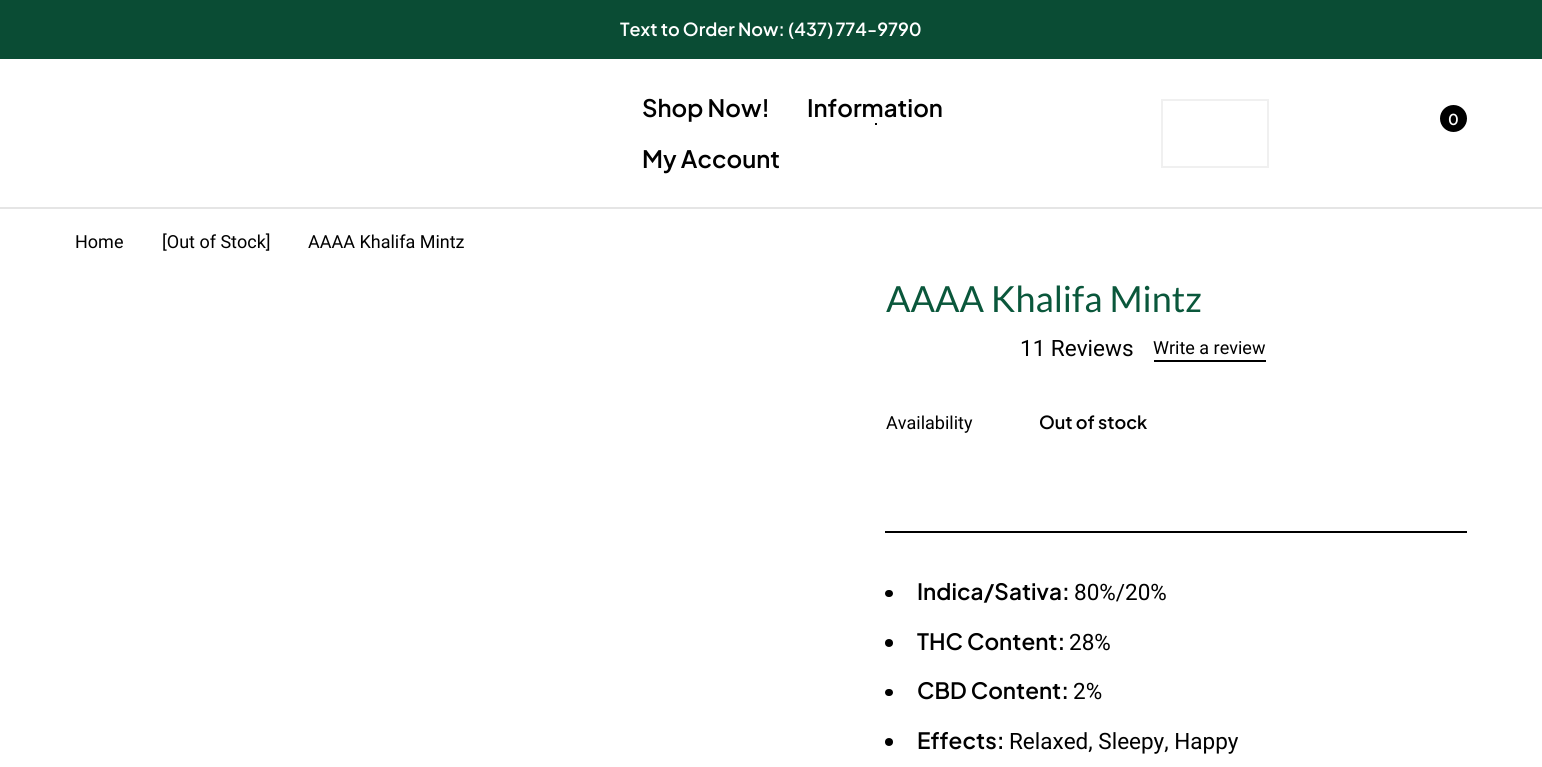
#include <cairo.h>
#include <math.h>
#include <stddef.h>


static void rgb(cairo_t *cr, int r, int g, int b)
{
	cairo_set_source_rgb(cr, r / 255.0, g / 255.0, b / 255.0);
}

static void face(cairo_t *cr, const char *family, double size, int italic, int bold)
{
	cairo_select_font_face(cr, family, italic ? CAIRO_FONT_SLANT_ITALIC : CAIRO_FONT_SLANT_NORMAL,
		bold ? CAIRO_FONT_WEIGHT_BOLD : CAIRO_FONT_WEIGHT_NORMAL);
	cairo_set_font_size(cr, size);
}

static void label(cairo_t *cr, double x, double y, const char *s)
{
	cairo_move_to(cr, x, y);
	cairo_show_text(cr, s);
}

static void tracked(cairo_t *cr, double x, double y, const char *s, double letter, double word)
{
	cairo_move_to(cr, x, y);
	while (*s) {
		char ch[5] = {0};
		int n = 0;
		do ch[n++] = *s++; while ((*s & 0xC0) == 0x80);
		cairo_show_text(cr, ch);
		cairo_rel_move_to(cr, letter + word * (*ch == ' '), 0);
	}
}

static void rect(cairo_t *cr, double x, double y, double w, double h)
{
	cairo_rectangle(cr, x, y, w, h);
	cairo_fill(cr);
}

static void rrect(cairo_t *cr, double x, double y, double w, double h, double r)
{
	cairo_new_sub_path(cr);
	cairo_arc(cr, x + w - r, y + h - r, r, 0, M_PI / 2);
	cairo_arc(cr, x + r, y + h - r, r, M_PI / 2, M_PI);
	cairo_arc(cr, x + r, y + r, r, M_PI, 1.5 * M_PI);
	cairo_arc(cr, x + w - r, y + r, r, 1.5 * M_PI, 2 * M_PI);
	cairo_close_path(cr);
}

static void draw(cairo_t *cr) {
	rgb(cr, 255, 255, 255);
	cairo_paint(cr);
	rgb(cr, 10, 76, 52);
	rect(cr, 0, 0, 1542, 59);
	face(cr, "Plus Jakarta Sans SemiBold", 18, 0, 0);
	rgb(cr, 255, 255, 255);
	label(cr, 620, 36, "Text to Order Now:");
	tracked(cr, 788, 36, "(437) 774-9790", 0, -1);
	face(cr, "Plus Jakarta Sans SemiBold", 24, 0, 0);
	rgb(cr, 0, 0, 0);
	label(cr, 642, 117, "Shop Now!");
	label(cr, 807, 117, "Information");
	rect(cr, 875, 123, 2, 2);
	label(cr, 642, 168, "My Account");
	cairo_rectangle(cr, 1162, 100, 106, 67);
	rgb(cr, 240, 240, 240);
	cairo_stroke(cr);
	rgb(cr, 0, 0, 0);
	cairo_arc(cr, 1453.5, 118.5, 13.5, 0, 2 * M_PI);
	cairo_fill(cr);
	face(cr, "Plus Jakarta Sans SemiBold", 15, 0, 0);
	rgb(cr, 255, 255, 255);
	label(cr, 1448, 125, "0");
	rgb(cr, 229, 229, 229);
	rect(cr, 0, 207, 1542, 2);
	face(cr, "Roboto", 18, 0, 0);
	rgb(cr, 0, 0, 0);
	label(cr, 75, 248, "Home");
	label(cr, 162, 248, "[Out of Stock]");
	label(cr, 308, 248, "AAAA Khalifa Mintz");
	face(cr, "Lato", 36, 0, 0);
	rgb(cr, 10, 87, 59);
	label(cr, 886, 312, "AAAA Khalifa Mintz");
	face(cr, "Roboto", 22.5, 0, 0);
	rgb(cr, 0, 0, 0);
	label(cr, 1020, 356, "11 Reviews");
	face(cr, "Roboto", 18, 0, 0);
	label(cr, 1153, 354, "Write a review");
	rect(cr, 1154, 360, 112, 2);
	label(cr, 886, 429, "Availability");
	face(cr, "Plus Jakarta Sans SemiBold", 18, 0, 0);
	label(cr, 1039, 429, "Out of stock");
	rect(cr, 885, 531, 582, 2);
	rrect(cr, 885, 590, 8, 7, 3.5);
	cairo_fill(cr);
	face(cr, "Plus Jakarta Sans SemiBold", 22.5, 0, 0);
	label(cr, 917, 600, "Indica/Sativa:");
	face(cr, "Roboto", 22.5, 0, 0);
	label(cr, 1074, 600, "80%/20%");
	cairo_new_path(cr);
	cairo_arc(cr, 889, 643, 4, 0, 2 * M_PI);
	cairo_fill(cr);
	face(cr, "Plus Jakarta Sans SemiBold", 22.5, 0, 0);
	label(cr, 917, 650, "THC Content:");
	face(cr, "Roboto", 22.5, 0, 0);
	label(cr, 1069, 650, "28%");
	rrect(cr, 885, 689, 8, 7, 3.5);
	cairo_fill(cr);
	face(cr, "Plus Jakarta Sans SemiBold", 22.5, 0, 0);
	label(cr, 917, 699, "CBD Content:");
	face(cr, "Roboto", 22.5, 0, 0);
	label(cr, 1073, 699, "2%");
	cairo_new_path(cr);
	cairo_arc(cr, 889, 742, 4, 0, 2 * M_PI);
	cairo_fill(cr);
	face(cr, "Plus Jakarta Sans SemiBold", 22.5, 0, 0);
	label(cr, 917, 749, "Effects:");
	face(cr, "Roboto", 22.5, 0, 0);
	label(cr, 1009, 749, "Relaxed, Sleepy, Happy");
}

int main(void) {
	cairo_surface_t *surface = cairo_image_surface_create(CAIRO_FORMAT_RGB24, 1542, 767);
	cairo_t *cr = cairo_create(surface);
	cairo_font_options_t *options = cairo_font_options_create();
	cairo_font_options_set_hint_metrics(options, CAIRO_HINT_METRICS_OFF);
	cairo_font_options_set_hint_style(options, CAIRO_HINT_STYLE_NONE);
	cairo_set_font_options(cr, options);
	cairo_set_miter_limit(cr, 4);
	draw(cr);
	cairo_surface_write_to_png(surface, "render.png");
	cairo_font_options_destroy(options);
	cairo_destroy(cr);
	cairo_surface_destroy(surface);
	return 0;
}
